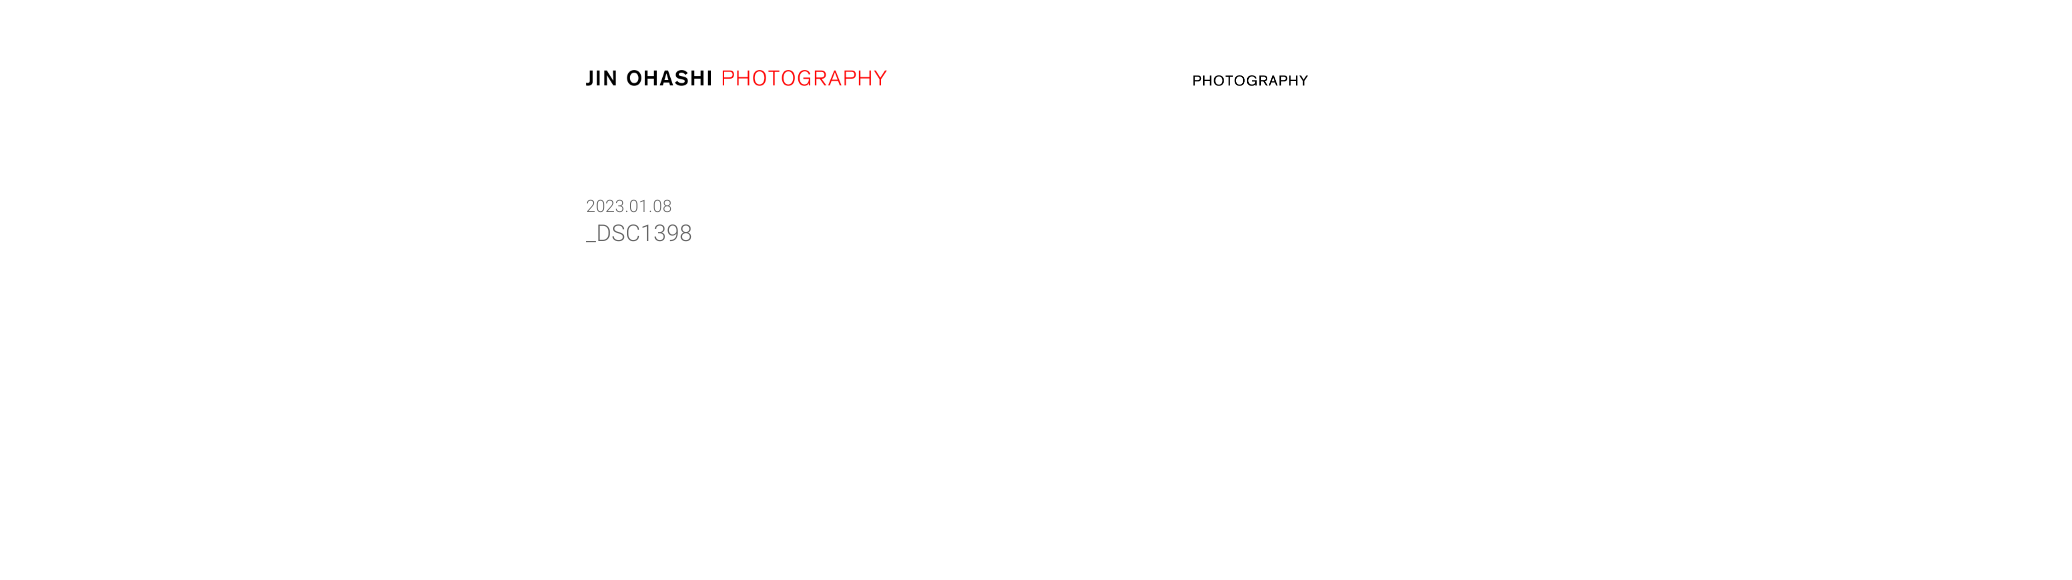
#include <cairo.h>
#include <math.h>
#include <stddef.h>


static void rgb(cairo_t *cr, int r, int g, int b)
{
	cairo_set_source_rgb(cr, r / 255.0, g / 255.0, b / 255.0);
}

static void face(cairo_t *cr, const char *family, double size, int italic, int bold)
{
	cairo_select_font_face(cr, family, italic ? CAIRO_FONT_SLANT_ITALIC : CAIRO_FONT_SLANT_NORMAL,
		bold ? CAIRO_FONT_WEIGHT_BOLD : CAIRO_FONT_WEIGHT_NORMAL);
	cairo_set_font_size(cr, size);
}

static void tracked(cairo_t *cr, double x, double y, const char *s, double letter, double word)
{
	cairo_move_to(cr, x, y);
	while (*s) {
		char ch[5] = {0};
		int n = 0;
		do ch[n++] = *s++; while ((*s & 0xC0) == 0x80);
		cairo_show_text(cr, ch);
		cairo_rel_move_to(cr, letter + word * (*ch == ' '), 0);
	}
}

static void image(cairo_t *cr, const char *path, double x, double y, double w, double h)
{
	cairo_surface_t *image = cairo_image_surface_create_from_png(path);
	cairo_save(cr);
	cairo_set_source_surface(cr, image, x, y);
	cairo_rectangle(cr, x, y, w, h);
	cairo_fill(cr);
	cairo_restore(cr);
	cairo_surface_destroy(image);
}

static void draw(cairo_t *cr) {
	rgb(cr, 255, 255, 255);
	cairo_paint(cr);
	image(cr, "image0.png", 586, 70, 301, 16);
	image(cr, "image1.png", 1193, 75, 115, 11);
	face(cr, "Roboto Light", 17, 0, 0);
	rgb(cr, 100, 100, 100);
	tracked(cr, 586, 212, "2023.01.08", 0.25, 0);
	face(cr, "Roboto Light", 23, 0, 0);
	tracked(cr, 586, 241, "_DSC1398", 0.25, 0);
}

int main(void) {
	cairo_surface_t *surface = cairo_image_surface_create(CAIRO_FORMAT_RGB24, 2072, 580);
	cairo_t *cr = cairo_create(surface);
	cairo_font_options_t *options = cairo_font_options_create();
	cairo_font_options_set_hint_metrics(options, CAIRO_HINT_METRICS_OFF);
	cairo_font_options_set_hint_style(options, CAIRO_HINT_STYLE_NONE);
	cairo_set_font_options(cr, options);
	cairo_set_miter_limit(cr, 4);
	draw(cr);
	cairo_surface_write_to_png(surface, "render.png");
	cairo_font_options_destroy(options);
	cairo_destroy(cr);
	cairo_surface_destroy(surface);
	return 0;
}
